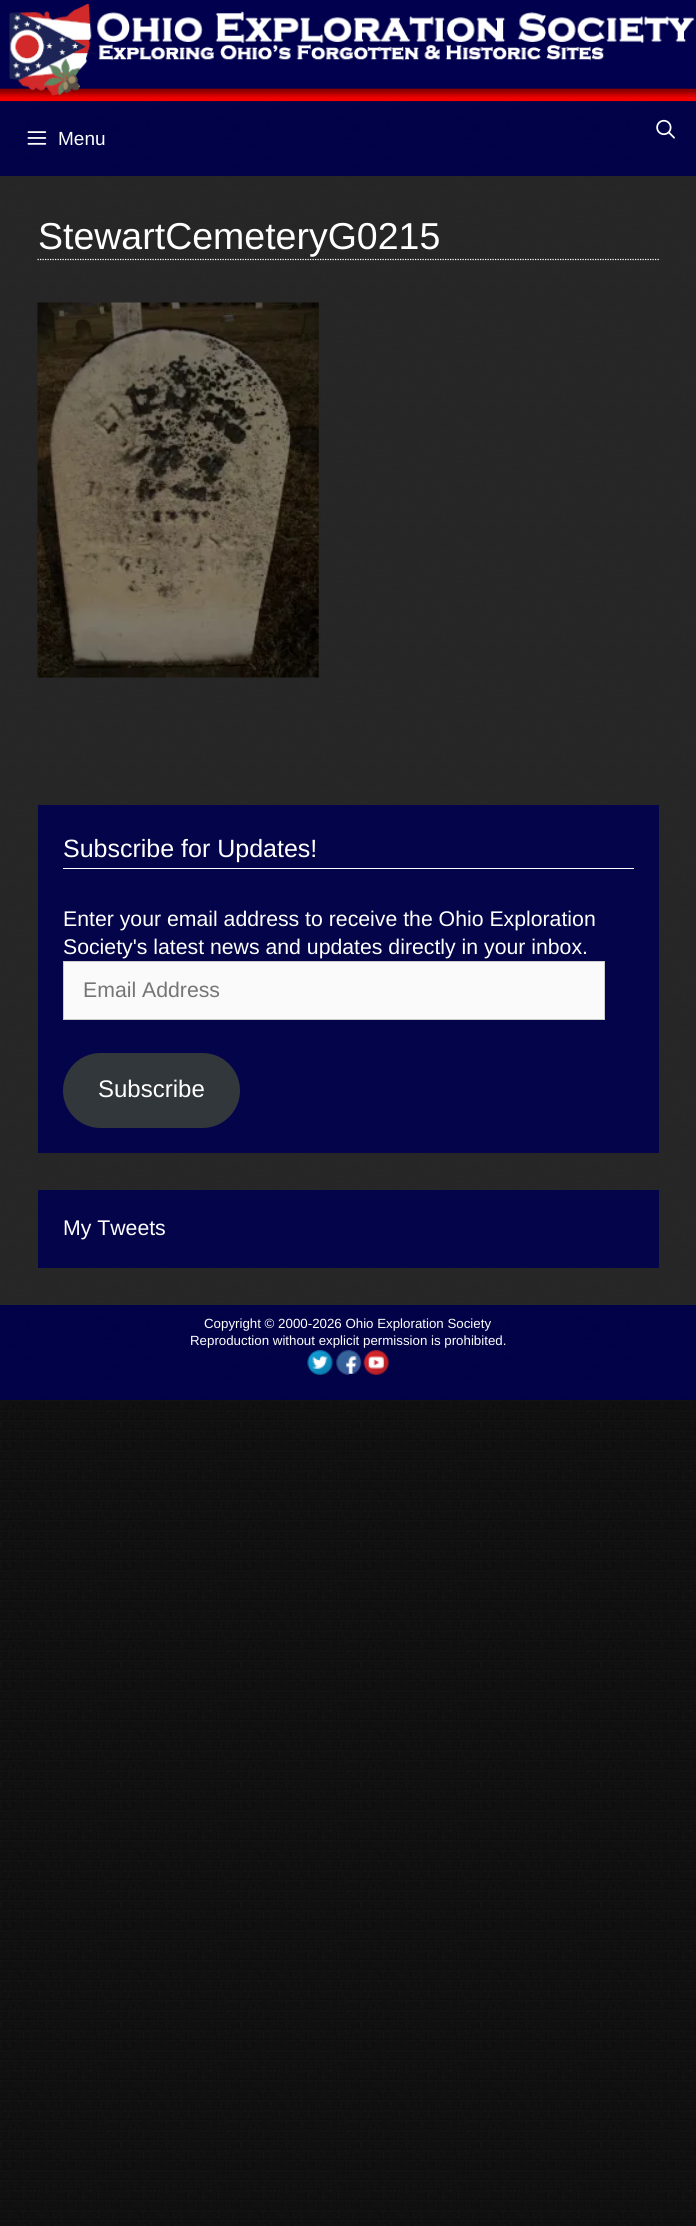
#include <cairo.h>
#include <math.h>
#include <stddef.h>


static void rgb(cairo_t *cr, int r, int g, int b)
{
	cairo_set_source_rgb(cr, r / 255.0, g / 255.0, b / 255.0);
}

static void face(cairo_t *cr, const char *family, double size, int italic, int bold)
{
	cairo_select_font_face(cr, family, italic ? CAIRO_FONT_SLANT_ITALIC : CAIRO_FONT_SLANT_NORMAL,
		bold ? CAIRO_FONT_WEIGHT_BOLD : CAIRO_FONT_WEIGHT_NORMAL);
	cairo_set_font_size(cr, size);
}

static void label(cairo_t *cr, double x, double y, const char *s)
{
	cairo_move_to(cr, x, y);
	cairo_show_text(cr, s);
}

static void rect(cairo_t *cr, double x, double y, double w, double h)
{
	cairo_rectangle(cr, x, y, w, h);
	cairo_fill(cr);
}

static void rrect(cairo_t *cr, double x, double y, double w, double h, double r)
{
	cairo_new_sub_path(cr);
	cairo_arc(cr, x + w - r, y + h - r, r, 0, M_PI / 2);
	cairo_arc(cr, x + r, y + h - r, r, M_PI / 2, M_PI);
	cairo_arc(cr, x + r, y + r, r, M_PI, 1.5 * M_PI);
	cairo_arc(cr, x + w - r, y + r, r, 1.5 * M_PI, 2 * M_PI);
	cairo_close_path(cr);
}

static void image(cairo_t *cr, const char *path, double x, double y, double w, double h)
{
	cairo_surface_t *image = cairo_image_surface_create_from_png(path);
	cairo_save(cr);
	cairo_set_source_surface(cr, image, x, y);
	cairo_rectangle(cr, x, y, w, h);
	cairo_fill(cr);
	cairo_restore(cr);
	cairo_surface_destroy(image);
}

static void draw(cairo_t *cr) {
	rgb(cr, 255, 255, 255);
	cairo_paint(cr);
	image(cr, "image0.png", 0, 101, 696, 2125);
	cairo_set_source_rgba(cr, 0, 0, 0.306, 0.9);
	rect(cr, 0, 101, 696, 75);
	image(cr, "image1.png", 0, 0, 696, 102);
	image(cr, "image2.png", 9, 4, 686, 92);
	image(cr, "image3.png", 27, 131, 20, 14);
	face(cr, "Liberation Sans", 19, 0, 0);
	rgb(cr, 255, 255, 255);
	label(cr, 58, 145, "Menu");
	image(cr, "image4.png", 656, 119, 19, 20);
	cairo_set_source_rgba(cr, 0.176, 0.176, 0.176, 0.79);
	rect(cr, 0, 176, 696, 1129);
	cairo_new_path(cr);
	cairo_move_to(cr, 37.5, 259.5);
	cairo_line_to(cr, 659, 259.5);
	rgb(cr, 255, 255, 255);
	cairo_set_line_width(cr, 1.2);
	cairo_set_dash(cr, (double[]){1.25, 1.25}, 2, 0);
	cairo_stroke(cr);
	face(cr, "Liberation Sans", 37.5, 0, 0);
	label(cr, 38, 249, "StewartCemeteryG0215");
	image(cr, "image5.png", 37, 302, 282, 376);
	rgb(cr, 4, 4, 74);
	rect(cr, 38, 805, 621, 348);
	rgb(cr, 255, 255, 255);
	rect(cr, 63, 868, 571, 1);
	face(cr, "Liberation Sans", 25, 0, 0);
	label(cr, 63, 857, "Subscribe for Updates!");
	face(cr, "Liberation Sans", 21.25, 0, 0);
	label(cr, 63, 926, "Enter your email address to receive the Ohio Exploration");
	label(cr, 63, 954, "Society's latest news and updates directly in your inbox.");
	rgb(cr, 250, 250, 250);
	cairo_rectangle(cr, 63.5, 961.5, 541, 58);
	cairo_fill_preserve(cr);
	rgb(cr, 204, 204, 204);
	cairo_set_line_width(cr, 1);
	cairo_set_dash(cr, NULL, 0, 0);
	cairo_stroke(cr);
	rgb(cr, 117, 117, 117);
	label(cr, 83, 997, "Email Address");
	rgb(cr, 50, 55, 60);
	rrect(cr, 63, 1053, 177, 75, 37.5);
	cairo_fill(cr);
	face(cr, "Liberation Sans", 24, 0, 0);
	rgb(cr, 255, 255, 255);
	label(cr, 98, 1097, "Subscribe");
	rgb(cr, 4, 4, 74);
	rect(cr, 38, 1190, 621, 78);
	face(cr, "Liberation Sans", 21.25, 0, 0);
	rgb(cr, 255, 255, 255);
	label(cr, 63, 1235, "My Tweets");
	cairo_set_source_rgba(cr, 0, 0, 0.306, 0.9);
	rect(cr, 0, 1305, 696, 95);
	face(cr, "Liberation Sans", 13.3, 0, 0);
	rgb(cr, 255, 255, 255);
	label(cr, 204, 1328, "Copyright © 2000-2026 Ohio Exploration Society");
	label(cr, 190, 1345, "Reproduction without explicit permission is prohibited.");
	image(cr, "image6.png", 307, 1350, 26, 25);
	image(cr, "image7.png", 336, 1350, 26, 25);
	image(cr, "image8.png", 363, 1350, 26, 25);
}

int main(void) {
	cairo_surface_t *surface = cairo_image_surface_create(CAIRO_FORMAT_RGB24, 696, 2226);
	cairo_t *cr = cairo_create(surface);
	cairo_font_options_t *options = cairo_font_options_create();
	cairo_font_options_set_hint_metrics(options, CAIRO_HINT_METRICS_OFF);
	cairo_font_options_set_hint_style(options, CAIRO_HINT_STYLE_NONE);
	cairo_set_font_options(cr, options);
	cairo_set_miter_limit(cr, 4);
	draw(cr);
	cairo_surface_write_to_png(surface, "render.png");
	cairo_font_options_destroy(options);
	cairo_destroy(cr);
	cairo_surface_destroy(surface);
	return 0;
}
